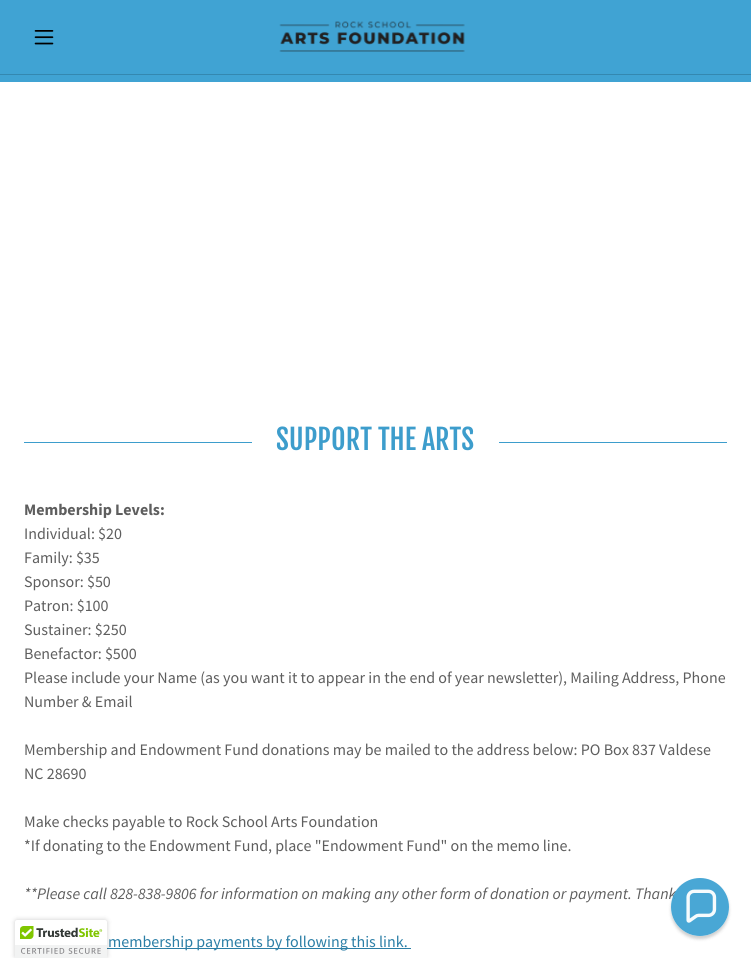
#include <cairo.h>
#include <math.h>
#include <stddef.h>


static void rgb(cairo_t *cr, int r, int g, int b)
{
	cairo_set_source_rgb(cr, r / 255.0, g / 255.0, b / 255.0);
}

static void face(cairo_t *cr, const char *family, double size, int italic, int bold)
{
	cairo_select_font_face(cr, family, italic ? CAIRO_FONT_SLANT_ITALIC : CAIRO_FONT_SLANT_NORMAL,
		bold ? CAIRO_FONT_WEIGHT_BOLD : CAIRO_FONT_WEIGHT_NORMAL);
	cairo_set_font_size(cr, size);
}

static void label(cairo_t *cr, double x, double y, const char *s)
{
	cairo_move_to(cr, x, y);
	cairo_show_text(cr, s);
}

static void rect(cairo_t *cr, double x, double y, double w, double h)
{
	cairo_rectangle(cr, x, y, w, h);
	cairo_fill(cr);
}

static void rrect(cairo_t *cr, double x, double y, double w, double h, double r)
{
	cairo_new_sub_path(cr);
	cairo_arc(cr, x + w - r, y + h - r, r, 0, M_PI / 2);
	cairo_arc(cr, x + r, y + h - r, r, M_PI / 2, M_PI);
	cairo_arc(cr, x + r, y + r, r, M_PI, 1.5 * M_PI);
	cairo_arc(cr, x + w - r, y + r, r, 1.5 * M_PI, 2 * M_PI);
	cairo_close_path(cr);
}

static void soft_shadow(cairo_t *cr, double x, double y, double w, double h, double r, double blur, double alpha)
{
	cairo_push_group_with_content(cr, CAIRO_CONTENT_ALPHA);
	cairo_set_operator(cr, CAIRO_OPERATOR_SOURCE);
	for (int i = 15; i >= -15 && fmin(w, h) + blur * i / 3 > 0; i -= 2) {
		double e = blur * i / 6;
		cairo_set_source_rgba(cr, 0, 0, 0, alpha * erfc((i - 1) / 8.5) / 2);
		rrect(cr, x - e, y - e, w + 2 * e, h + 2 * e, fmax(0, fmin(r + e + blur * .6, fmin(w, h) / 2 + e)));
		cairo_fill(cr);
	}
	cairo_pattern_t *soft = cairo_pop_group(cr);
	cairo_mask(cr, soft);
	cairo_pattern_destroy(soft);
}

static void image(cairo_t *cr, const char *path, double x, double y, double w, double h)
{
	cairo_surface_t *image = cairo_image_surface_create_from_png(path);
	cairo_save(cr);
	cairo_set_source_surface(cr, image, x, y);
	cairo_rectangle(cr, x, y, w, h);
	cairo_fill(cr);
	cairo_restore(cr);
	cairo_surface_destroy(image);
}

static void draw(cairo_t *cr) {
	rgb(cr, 64, 163, 211);
	cairo_paint(cr);
	image(cr, "image0.png", 34, 30, 20, 15);
	image(cr, "image1.png", 279, 21, 186, 31);
	rgb(cr, 52, 136, 176);
	rect(cr, 0, 74, 751, 1);
	rgb(cr, 255, 255, 255);
	rect(cr, 0, 82, 751, 876);
	rgb(cr, 61, 157, 204);
	rect(cr, 24, 442, 228, 1);
	face(cr, "Fjalla One", 28, 0, 0);
	label(cr, 276, 450, "SUPPORT THE ARTS");
	rect(cr, 499, 442, 228, 1);
	face(cr, "Source Sans Pro", 16, 0, 1);
	rgb(cr, 94, 94, 94);
	label(cr, 24, 515, "Membership Levels:");
	face(cr, "Source Sans Pro", 16, 0, 0);
	label(cr, 24, 539, "Individual: $20");
	label(cr, 24, 563, "Family: $35");
	label(cr, 24, 587, "Sponsor: $50");
	label(cr, 24, 611, "Patron: $100");
	label(cr, 24, 635, "Sustainer: $250");
	label(cr, 24, 659, "Benefactor: $500");
	label(cr, 24, 683, "Please include your Name (as you want it to appear in the end of year newsletter), Mailing Address, Phone");
	label(cr, 24, 707, "Number & Email");
	label(cr, 24, 755, "Membership and Endowment Fund donations may be mailed to the address below: PO Box 837 Valdese");
	label(cr, 24, 779, "NC 28690");
	label(cr, 24, 827, "Make checks payable to Rock School Arts Foundation");
	label(cr, 24, 851, "*If donating to the Endowment Fund, place \"Endowment Fund\" on the memo line.");
	face(cr, "Source Sans Pro", 16, 1, 0);
	label(cr, 24, 899, "**Please call 828-838-9806 for information on making any other form of donation or payment. Thank");
	rgb(cr, 43, 126, 166);
	rect(cr, 107, 948, 304, 1);
	face(cr, "Source Sans Pro", 16, 0, 0);
	label(cr, 108, 947, "membership payments by following this link.");
	rgb(cr, 0, 0, 0);
	soft_shadow(cr, 15, 920, 92, 38, 2, 2.5, 0.2);
	rgb(cr, 255, 255, 255);
	cairo_new_path(cr);
	cairo_move_to(cr, 17, 920);
	cairo_line_to(cr, 105, 920);
	cairo_curve_to(cr, 106, 920, 107, 921, 107, 922);
	cairo_line_to(cr, 107, 958);
	cairo_line_to(cr, 15, 958);
	cairo_line_to(cr, 15, 922);
	cairo_curve_to(cr, 15, 921, 16, 920, 17, 920);
	cairo_close_path(cr);
	cairo_fill(cr);
	image(cr, "image2.png", 15, 926, 92, 32);
	cairo_save(cr);
	cairo_set_fill_rule(cr, CAIRO_FILL_RULE_EVEN_ODD);
	cairo_new_path(cr);
	cairo_move_to(cr, 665, 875);
	cairo_line_to(cr, 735, 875);
	cairo_line_to(cr, 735, 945);
	cairo_line_to(cr, 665, 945);
	cairo_close_path(cr);
	cairo_move_to(cr, 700, 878);
	cairo_curve_to(cr, 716, 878, 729, 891, 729, 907);
	cairo_curve_to(cr, 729, 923, 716, 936, 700, 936);
	cairo_curve_to(cr, 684, 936, 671, 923, 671, 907);
	cairo_curve_to(cr, 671, 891, 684, 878, 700, 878);
	cairo_close_path(cr);
	cairo_clip(cr);
	rgb(cr, 0, 0, 0);
	soft_shadow(cr, 671, 881, 58, 58, 29, 1.5, 0.19);
	cairo_restore(cr);
	cairo_set_source_rgba(cr, 0.251, 0.639, 0.827, 0.95);
	cairo_arc(cr, 700, 907, 29, 0, 2 * M_PI);
	cairo_fill(cr);
	image(cr, "image3.png", 686, 889, 31, 34);
}

int main(void) {
	cairo_surface_t *surface = cairo_image_surface_create(CAIRO_FORMAT_RGB24, 751, 958);
	cairo_t *cr = cairo_create(surface);
	cairo_font_options_t *options = cairo_font_options_create();
	cairo_font_options_set_hint_metrics(options, CAIRO_HINT_METRICS_OFF);
	cairo_font_options_set_hint_style(options, CAIRO_HINT_STYLE_NONE);
	cairo_set_font_options(cr, options);
	cairo_set_miter_limit(cr, 4);
	draw(cr);
	cairo_surface_write_to_png(surface, "render.png");
	cairo_font_options_destroy(options);
	cairo_destroy(cr);
	cairo_surface_destroy(surface);
	return 0;
}
